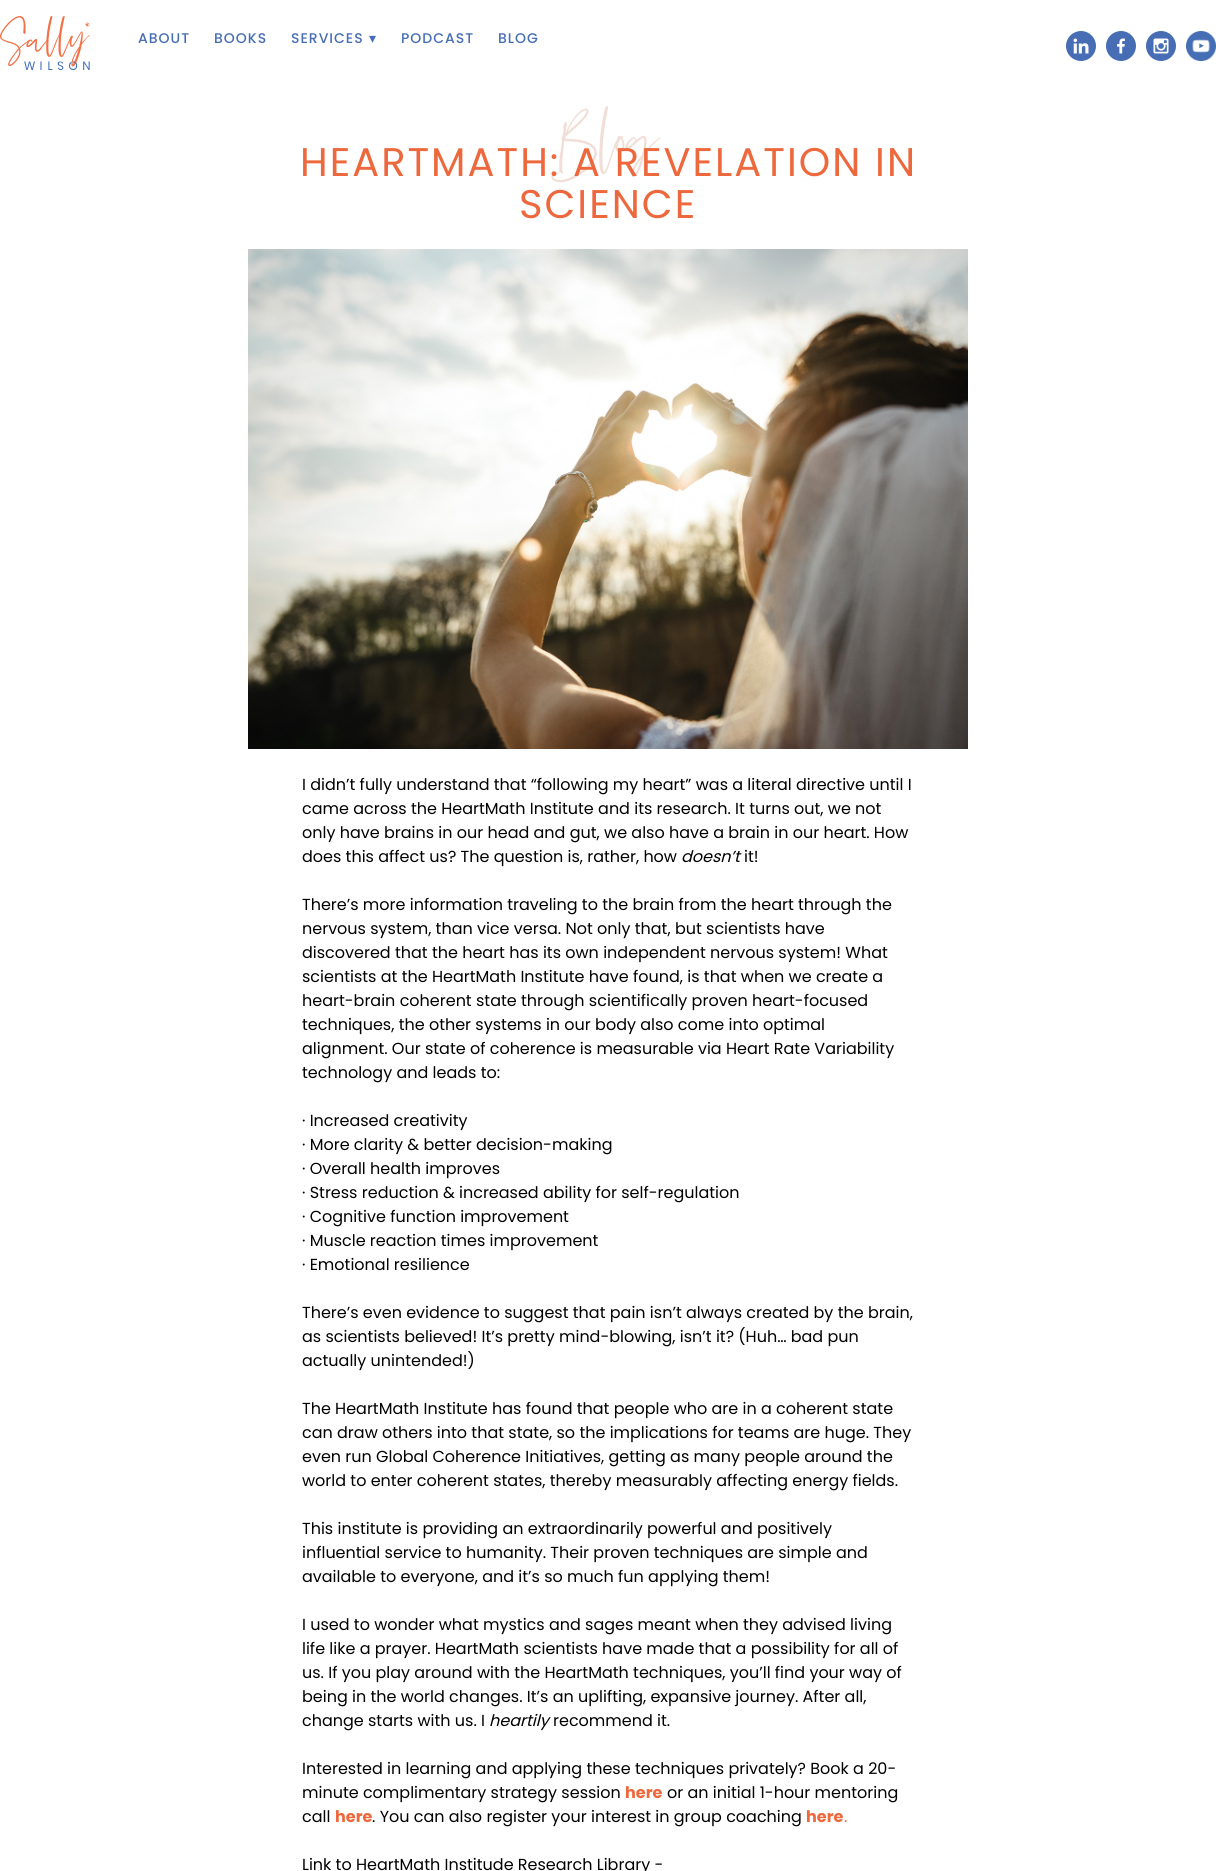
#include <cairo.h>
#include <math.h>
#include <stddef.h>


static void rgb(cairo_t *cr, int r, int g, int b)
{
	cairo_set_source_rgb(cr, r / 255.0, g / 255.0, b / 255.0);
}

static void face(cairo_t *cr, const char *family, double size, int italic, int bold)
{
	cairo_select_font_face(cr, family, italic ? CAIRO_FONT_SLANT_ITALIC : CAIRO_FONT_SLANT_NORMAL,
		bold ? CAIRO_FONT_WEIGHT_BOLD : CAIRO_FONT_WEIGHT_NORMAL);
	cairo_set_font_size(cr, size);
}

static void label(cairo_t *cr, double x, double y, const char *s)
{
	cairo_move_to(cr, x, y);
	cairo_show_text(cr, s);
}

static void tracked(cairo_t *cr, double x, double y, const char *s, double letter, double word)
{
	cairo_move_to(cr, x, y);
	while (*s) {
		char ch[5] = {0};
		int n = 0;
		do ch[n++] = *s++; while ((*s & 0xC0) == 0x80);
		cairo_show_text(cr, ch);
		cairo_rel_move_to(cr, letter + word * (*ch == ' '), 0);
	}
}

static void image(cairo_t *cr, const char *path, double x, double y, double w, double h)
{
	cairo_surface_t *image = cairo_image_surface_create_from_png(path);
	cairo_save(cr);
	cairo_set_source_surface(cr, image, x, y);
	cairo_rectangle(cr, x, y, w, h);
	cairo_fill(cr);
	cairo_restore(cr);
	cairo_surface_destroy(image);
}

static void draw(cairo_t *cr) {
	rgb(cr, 255, 255, 255);
	cairo_paint(cr);
	image(cr, "image0.png", 0, 16, 90, 54);
	face(cr, "Poppins Medium", 14, 0, 0);
	rgb(cr, 70, 110, 180);
	tracked(cr, 138, 43, "ABOUT", 1, 0);
	tracked(cr, 214, 43, "BOOKS", 1, 0);
	tracked(cr, 291, 43, "SERVICES", 1, 0);
	face(cr, "DejaVu Sans", 14, 0, 0);
	tracked(cr, 369, 43, "▾", 1, 0);
	face(cr, "Poppins Medium", 14, 0, 0);
	tracked(cr, 401, 43, "PODCAST", 1, 0);
	tracked(cr, 498, 43, "BLOG", 1, 0);
	image(cr, "image1.png", 1066, 31, 30, 30);
	image(cr, "image2.png", 1106, 31, 30, 30);
	image(cr, "image3.png", 1146, 31, 30, 30);
	image(cr, "image4.png", 1186, 31, 30, 30);
	face(cr, "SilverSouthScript", 75, 0, 0);
	rgb(cr, 241, 222, 215);
	label(cr, 558, 162, "Blog");
	face(cr, "Poppins", 40, 0, 0);
	rgb(cr, 237, 105, 61);
	tracked(cr, 300, 176, "HEARTMATH: A REVELATION IN", 2, 0);
	tracked(cr, 519, 218, "SCIENCE", 2, 0);
	image(cr, "image5.png", 248, 249, 720, 500);
	face(cr, "Poppins", 16, 0, 0);
	rgb(cr, 0, 0, 0);
	label(cr, 302, 790, "I didn’t fully understand that “following my heart” was a literal directive until I");
	label(cr, 302, 814, "came across the HeartMath Institute and its research. It turns out, we not");
	label(cr, 302, 838, "only have brains in our head and gut, we also have a brain in our heart. How");
	label(cr, 302, 862, "does this affect us? The question is, rather, how");
	face(cr, "Poppins", 16, 1, 0);
	label(cr, 681, 862, "doesn’t");
	face(cr, "Poppins", 16, 0, 0);
	label(cr, 744, 862, "it!");
	label(cr, 302, 910, "There’s more information traveling to the brain from the heart through the");
	label(cr, 302, 934, "nervous system, than vice versa. Not only that, but scientists have");
	label(cr, 302, 958, "discovered that the heart has its own independent nervous system! What");
	label(cr, 302, 982, "scientists at the HeartMath Institute have found, is that when we create a");
	label(cr, 302, 1006, "heart-brain coherent state through scientifically proven heart-focused");
	label(cr, 302, 1030, "techniques, the other systems in our body also come into optimal");
	label(cr, 302, 1054, "alignment. Our state of coherence is measurable via Heart Rate Variability");
	label(cr, 302, 1078, "technology and leads to:");
	label(cr, 302, 1126, "· Increased creativity");
	label(cr, 302, 1150, "· More clarity & better decision-making");
	label(cr, 302, 1174, "· Overall health improves");
	label(cr, 302, 1198, "· Stress reduction & increased ability for self-regulation");
	label(cr, 302, 1222, "· Cognitive function improvement");
	label(cr, 302, 1246, "· Muscle reaction times improvement");
	label(cr, 302, 1270, "· Emotional resilience");
	label(cr, 302, 1318, "There’s even evidence to suggest that pain isn’t always created by the brain,");
	label(cr, 302, 1342, "as scientists believed! It’s pretty mind-blowing, isn’t it? (Huh… bad pun");
	label(cr, 302, 1366, "actually unintended!)");
	label(cr, 302, 1414, "The HeartMath Institute has found that people who are in a coherent state");
	label(cr, 302, 1438, "can draw others into that state, so the implications for teams are huge. They");
	label(cr, 302, 1462, "even run Global Coherence Initiatives, getting as many people around the");
	label(cr, 302, 1486, "world to enter coherent states, thereby measurably affecting energy fields.");
	label(cr, 302, 1534, "This institute is providing an extraordinarily powerful and positively");
	label(cr, 302, 1558, "influential service to humanity. Their proven techniques are simple and");
	label(cr, 302, 1582, "available to everyone, and it’s so much fun applying them!");
	label(cr, 302, 1630, "I used to wonder what mystics and sages meant when they advised living");
	label(cr, 302, 1654, "life like a prayer. HeartMath scientists have made that a possibility for all of");
	label(cr, 302, 1678, "us. If you play around with the HeartMath techniques, you’ll find your way of");
	label(cr, 302, 1702, "being in the world changes. It’s an uplifting, expansive journey. After all,");
	label(cr, 302, 1726, "change starts with us. I");
	face(cr, "Poppins", 16, 1, 0);
	label(cr, 489, 1726, "heartily");
	face(cr, "Poppins", 16, 0, 0);
	label(cr, 553, 1726, "recommend it.");
	label(cr, 302, 1774, "Interested in learning and applying these techniques privately? Book a 20-");
	label(cr, 302, 1798, "minute complimentary strategy session");
	face(cr, "Poppins", 16, 0, 1);
	rgb(cr, 237, 105, 61);
	label(cr, 625, 1798, "here");
	face(cr, "Poppins", 16, 0, 0);
	rgb(cr, 0, 0, 0);
	label(cr, 667, 1798, "or an initial 1-hour mentoring");
	label(cr, 302, 1822, "call");
	face(cr, "Poppins", 16, 0, 1);
	rgb(cr, 237, 105, 61);
	label(cr, 335, 1822, "here");
	face(cr, "Poppins", 16, 0, 0);
	rgb(cr, 0, 0, 0);
	label(cr, 372, 1822, ". You can also register your interest in group coaching");
	face(cr, "Poppins", 16, 0, 1);
	rgb(cr, 237, 105, 61);
	label(cr, 806, 1822, "here");
	face(cr, "Poppins", 16, 0, 0);
	label(cr, 844, 1822, ".");
	rgb(cr, 0, 0, 0);
	label(cr, 302, 1870, "Link to HeartMath Institude Research Library -");
}

int main(void) {
	cairo_surface_t *surface = cairo_image_surface_create(CAIRO_FORMAT_RGB24, 1216, 1871);
	cairo_t *cr = cairo_create(surface);
	cairo_font_options_t *options = cairo_font_options_create();
	cairo_font_options_set_hint_metrics(options, CAIRO_HINT_METRICS_OFF);
	cairo_font_options_set_hint_style(options, CAIRO_HINT_STYLE_NONE);
	cairo_set_font_options(cr, options);
	cairo_set_miter_limit(cr, 4);
	draw(cr);
	cairo_surface_write_to_png(surface, "render.png");
	cairo_font_options_destroy(options);
	cairo_destroy(cr);
	cairo_surface_destroy(surface);
	return 0;
}
